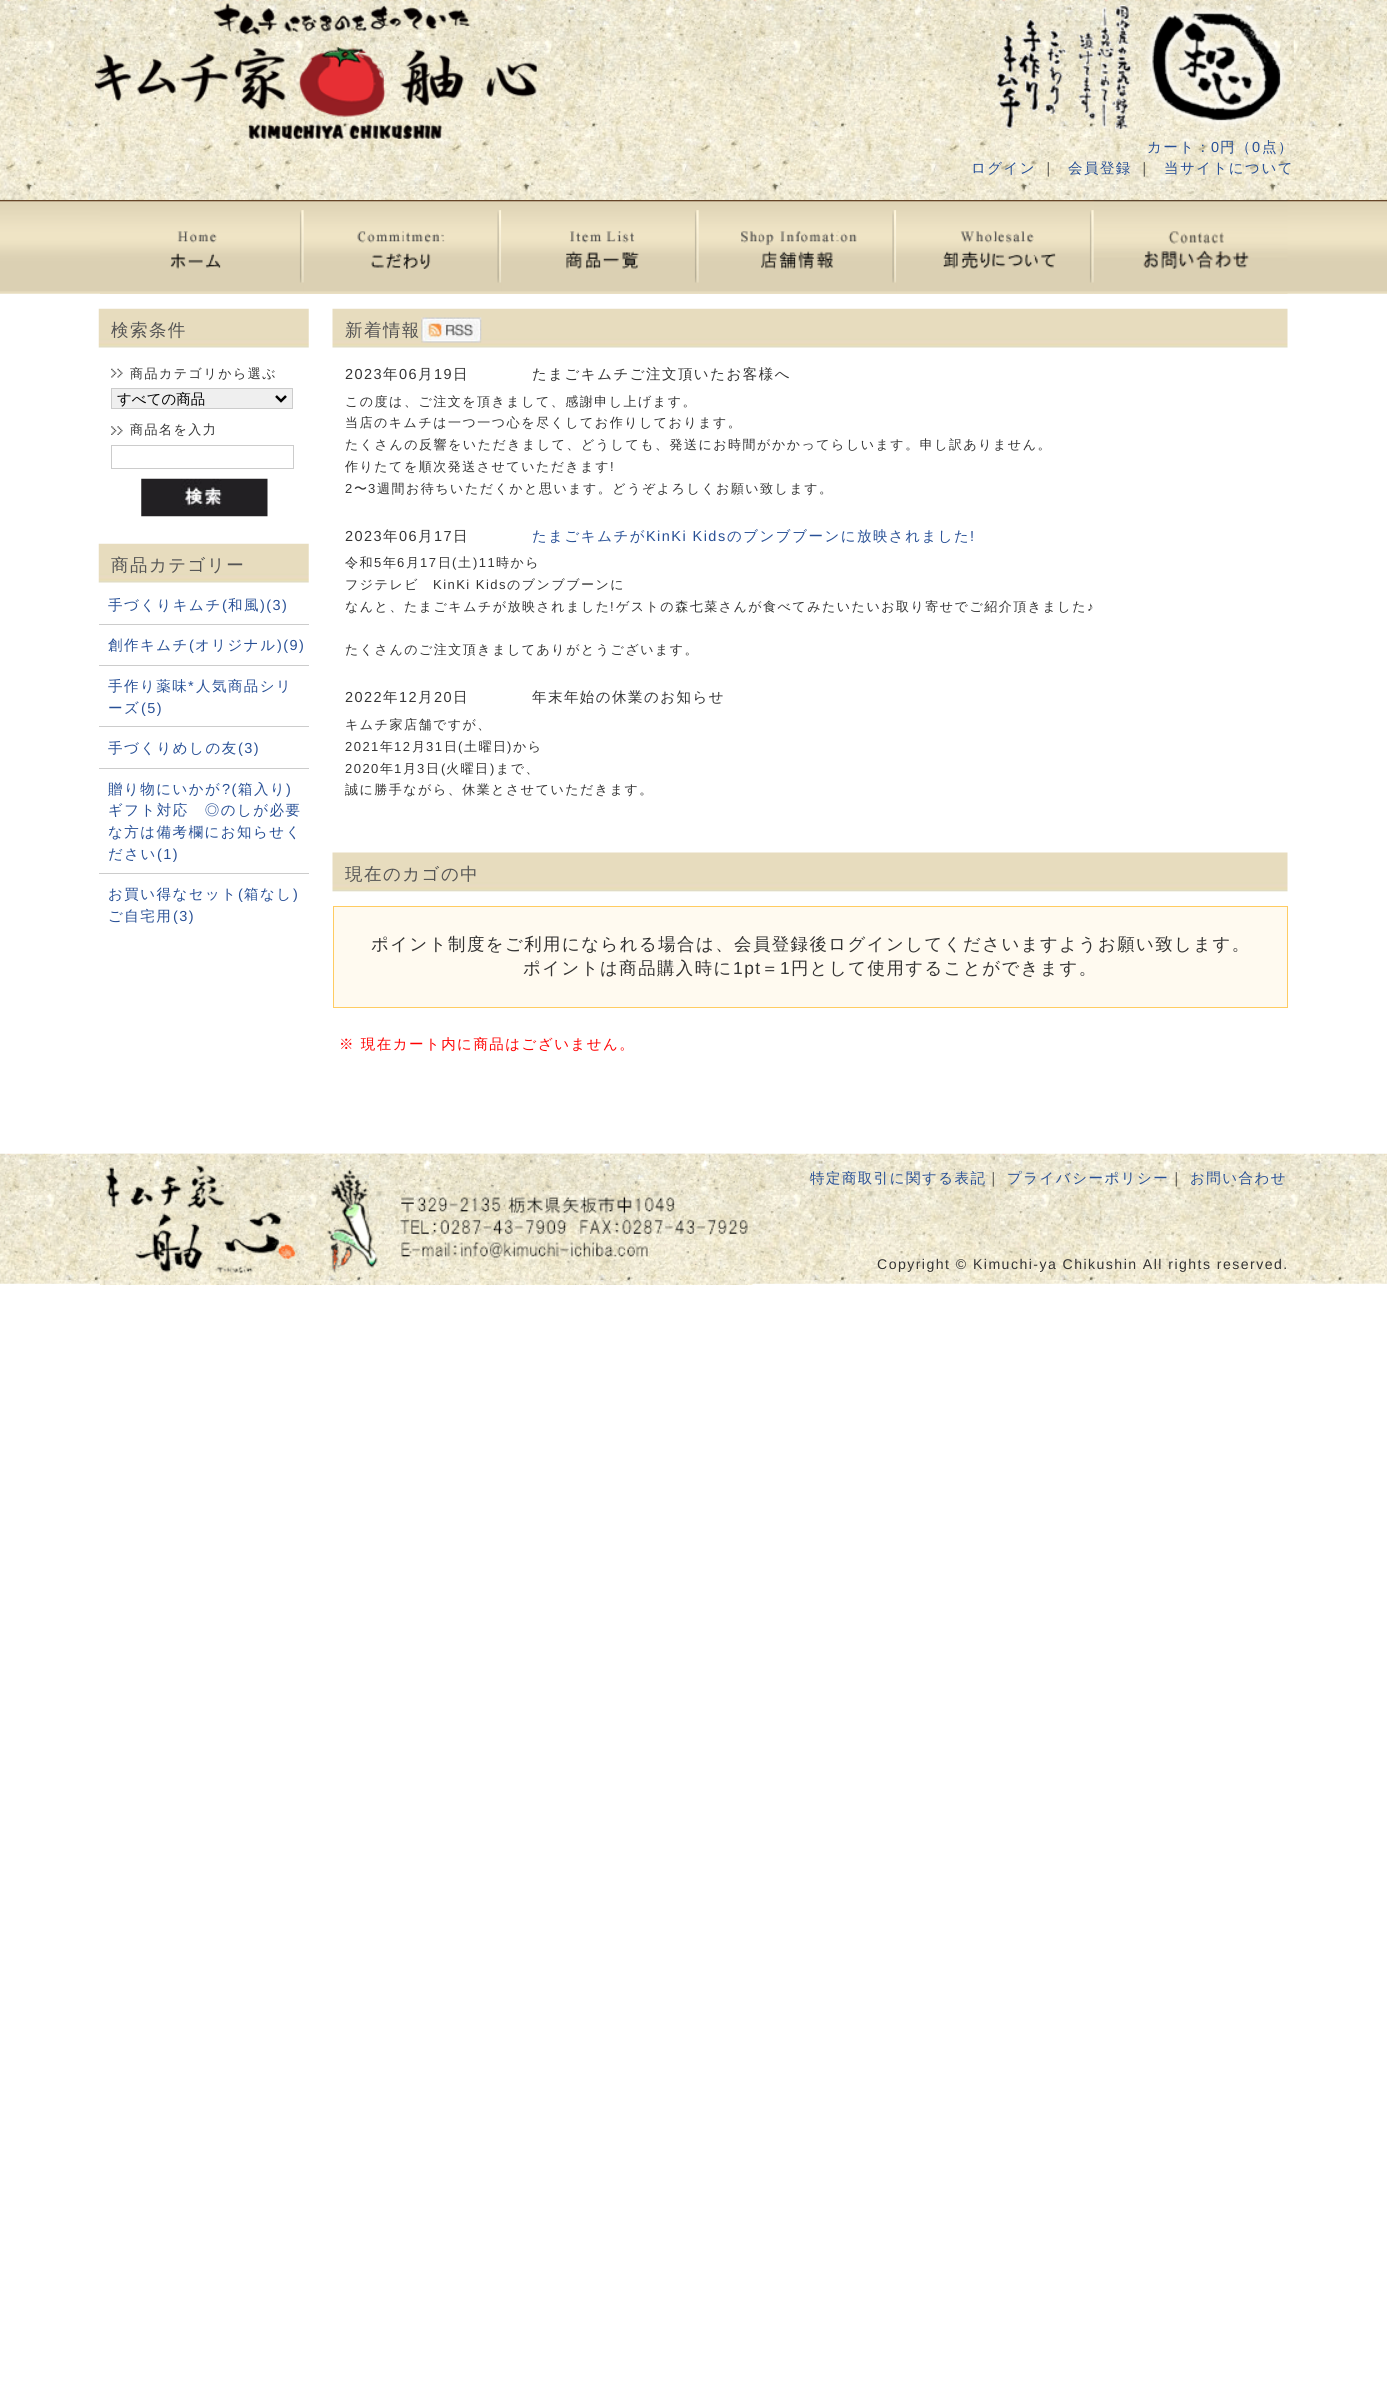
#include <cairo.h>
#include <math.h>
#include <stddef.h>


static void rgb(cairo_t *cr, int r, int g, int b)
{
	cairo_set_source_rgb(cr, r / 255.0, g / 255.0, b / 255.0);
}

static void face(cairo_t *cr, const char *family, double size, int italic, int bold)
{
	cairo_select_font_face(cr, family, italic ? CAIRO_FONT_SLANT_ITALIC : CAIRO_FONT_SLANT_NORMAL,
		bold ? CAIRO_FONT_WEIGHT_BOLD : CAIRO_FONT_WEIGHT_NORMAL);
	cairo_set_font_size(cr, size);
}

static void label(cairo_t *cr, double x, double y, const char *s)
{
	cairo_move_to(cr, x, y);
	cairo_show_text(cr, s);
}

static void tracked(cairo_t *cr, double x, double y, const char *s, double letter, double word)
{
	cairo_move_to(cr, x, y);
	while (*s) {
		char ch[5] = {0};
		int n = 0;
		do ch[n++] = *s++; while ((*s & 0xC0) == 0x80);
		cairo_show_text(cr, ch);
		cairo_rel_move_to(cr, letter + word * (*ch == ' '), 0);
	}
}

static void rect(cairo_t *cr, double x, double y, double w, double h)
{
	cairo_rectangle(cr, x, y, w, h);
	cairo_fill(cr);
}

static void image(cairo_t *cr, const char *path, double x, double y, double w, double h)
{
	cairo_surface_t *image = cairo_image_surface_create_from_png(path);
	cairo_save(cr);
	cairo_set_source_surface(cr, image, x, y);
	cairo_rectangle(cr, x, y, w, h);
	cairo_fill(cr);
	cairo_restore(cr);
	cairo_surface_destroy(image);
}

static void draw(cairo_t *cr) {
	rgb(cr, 255, 255, 255);
	cairo_paint(cr);
	image(cr, "image0.png", 0, 0, 1387, 200);
	image(cr, "image1.png", 94, 3, 443, 136);
	image(cr, "image2.png", 996, 18, 71, 111);
	image(cr, "image3.png", 1078, 5, 54, 125);
	image(cr, "image4.png", 1141, 0, 153, 132);
	face(cr, "WenQuanYi Zen Hei Medium", 14.5, 0, 0);
	rgb(cr, 40, 80, 150);
	tracked(cr, 1147, 152, "カート：", 1.45, 0);
	face(cr, "Liberation Sans", 14.5, 0, 0);
	tracked(cr, 1211, 152, "0", 1.45, 0);
	face(cr, "WenQuanYi Zen Hei Medium", 14.5, 0, 0);
	tracked(cr, 1220, 152, "円（", 1.45, 0);
	face(cr, "Liberation Sans", 14.5, 0, 0);
	tracked(cr, 1252, 152, "0", 1.45, 0);
	face(cr, "WenQuanYi Zen Hei Medium", 14.5, 0, 0);
	tracked(cr, 1262, 152, "点）", 1.45, 0);
	tracked(cr, 971, 173, "ログイン", 1.45, 0);
	rgb(cr, 51, 51, 51);
	tracked(cr, 1041, 173, "｜", 1.45, 0);
	rgb(cr, 40, 80, 150);
	tracked(cr, 1068, 173, "会員登録", 1.45, 0);
	rgb(cr, 51, 51, 51);
	tracked(cr, 1137, 173, "｜", 1.45, 0);
	rgb(cr, 40, 80, 150);
	tracked(cr, 1164, 173, "当サイトについて", 1.45, 0);
	image(cr, "image5.png", 0, 200, 1387, 94);
	image(cr, "image6.png", 100, 210, 204, 84);
	image(cr, "image7.png", 303, 210, 199, 84);
	image(cr, "image8.png", 501, 210, 198, 84);
	image(cr, "image9.png", 698, 210, 199, 84);
	image(cr, "image10.png", 896, 210, 198, 84);
	image(cr, "image11.png", 1093, 200, 195, 94);
	image(cr, "image12.png", 98, 308, 211, 40);
	face(cr, "WenQuanYi Zen Hei Medium", 17.5, 0, 0);
	rgb(cr, 85, 85, 85);
	tracked(cr, 111, 336, "検索条件", 1.45, 0);
	image(cr, "image13.png", 111, 368, 12, 10);
	face(cr, "WenQuanYi Zen Hei Medium", 13.05, 0, 0);
	rgb(cr, 51, 51, 51);
	tracked(cr, 130, 378, "商品カテゴリから選ぶ", 1.45, 0);
	rgb(cr, 239, 239, 239);
	cairo_rectangle(cr, 111.5, 388.5, 181, 20);
	cairo_fill_preserve(cr);
	rgb(cr, 204, 204, 204);
	cairo_set_line_width(cr, 1);
	cairo_stroke(cr);
	cairo_new_path(cr);
	cairo_move_to(cr, 276, 396);
	cairo_line_to(cr, 281, 401);
	cairo_line_to(cr, 286, 396);
	rgb(cr, 0, 0, 0);
	cairo_set_line_width(cr, 2.5);
	cairo_stroke(cr);
	face(cr, "WenQuanYi Zen Hei Medium", 14.5, 0, 0);
	label(cr, 117, 404, "すべての商品");
	image(cr, "image14.png", 111, 426, 12, 9);
	face(cr, "WenQuanYi Zen Hei Medium", 13.05, 0, 0);
	rgb(cr, 51, 51, 51);
	tracked(cr, 130, 434, "商品名を入力", 1.45, 0);
	cairo_rectangle(cr, 111.5, 445.5, 182, 23);
	rgb(cr, 204, 204, 204);
	cairo_set_line_width(cr, 1);
	cairo_stroke(cr);
	image(cr, "image15.png", 141, 478, 127, 39);
	image(cr, "image16.png", 98, 543, 211, 40);
	face(cr, "WenQuanYi Zen Hei Medium", 17.5, 0, 0);
	rgb(cr, 85, 85, 85);
	tracked(cr, 111, 571, "商品カテゴリー", 1.45, 0);
	rgb(cr, 204, 204, 204);
	rect(cr, 99, 624, 210, 1);
	face(cr, "WenQuanYi Zen Hei Medium", 14.5, 0, 0);
	rgb(cr, 40, 80, 150);
	tracked(cr, 108, 610, "手づくりキムチ", 1.45, 0);
	face(cr, "Liberation Sans", 14.5, 0, 0);
	tracked(cr, 222, 610, "(", 1.45, 0);
	face(cr, "WenQuanYi Zen Hei Medium", 14.5, 0, 0);
	tracked(cr, 228, 610, "和風", 1.45, 0);
	face(cr, "Liberation Sans", 14.5, 0, 0);
	tracked(cr, 260, 610, ")(3)", 1.45, 0);
	rgb(cr, 204, 204, 204);
	rect(cr, 99, 665, 210, 1);
	face(cr, "WenQuanYi Zen Hei Medium", 14.5, 0, 0);
	rgb(cr, 40, 80, 150);
	tracked(cr, 108, 650, "創作キムチ", 1.45, 0);
	face(cr, "Liberation Sans", 14.5, 0, 0);
	tracked(cr, 189, 650, "(", 1.45, 0);
	face(cr, "WenQuanYi Zen Hei Medium", 14.5, 0, 0);
	tracked(cr, 195, 650, "オリジナル", 1.45, 0);
	face(cr, "Liberation Sans", 14.5, 0, 0);
	tracked(cr, 277, 650, ")(9)", 1.45, 0);
	rgb(cr, 204, 204, 204);
	rect(cr, 99, 726, 210, 1);
	face(cr, "WenQuanYi Zen Hei Medium", 14.5, 0, 0);
	rgb(cr, 40, 80, 150);
	tracked(cr, 108, 691, "手作り薬味", 1.45, 0);
	face(cr, "Liberation Sans", 14.5, 0, 0);
	tracked(cr, 188, 691, "*", 1.45, 0);
	face(cr, "WenQuanYi Zen Hei Medium", 14.5, 0, 0);
	tracked(cr, 196, 691, "人気商品シリ", 1.45, 0);
	tracked(cr, 108, 713, "ーズ", 1.45, 0);
	face(cr, "Liberation Sans", 14.5, 0, 0);
	tracked(cr, 141, 713, "(5)", 1.45, 0);
	rgb(cr, 204, 204, 204);
	rect(cr, 99, 768, 210, 1);
	face(cr, "WenQuanYi Zen Hei Medium", 14.5, 0, 0);
	rgb(cr, 40, 80, 150);
	tracked(cr, 108, 753, "手づくりめしの友", 1.45, 0);
	face(cr, "Liberation Sans", 14.5, 0, 0);
	tracked(cr, 238, 753, "(3)", 1.45, 0);
	rgb(cr, 204, 204, 204);
	rect(cr, 99, 873, 210, 1);
	face(cr, "WenQuanYi Zen Hei Medium", 14.5, 0, 0);
	rgb(cr, 40, 80, 150);
	tracked(cr, 108, 794, "贈り物にいかが", 1.45, 0);
	face(cr, "Liberation Sans", 14.5, 0, 0);
	tracked(cr, 222, 794, "?(", 1.45, 0);
	face(cr, "WenQuanYi Zen Hei Medium", 14.5, 0, 0);
	tracked(cr, 238, 794, "箱入り", 1.45, 0);
	face(cr, "Liberation Sans", 14.5, 0, 0);
	tracked(cr, 286, 794, ")", 1.45, 0);
	face(cr, "WenQuanYi Zen Hei Medium", 14.5, 0, 0);
	tracked(cr, 108, 815, "ギフト対応　◎のしが必要", 1.45, 0);
	tracked(cr, 108, 837, "な方は備考欄にお知らせく", 1.45, 0);
	tracked(cr, 108, 859, "ださい", 1.45, 0);
	face(cr, "Liberation Sans", 14.5, 0, 0);
	tracked(cr, 157, 859, "(1)", 1.45, 0);
	face(cr, "WenQuanYi Zen Hei Medium", 14.5, 0, 0);
	tracked(cr, 108, 899, "お買い得なセット", 1.45, 0);
	face(cr, "Liberation Sans", 14.5, 0, 0);
	tracked(cr, 238, 899, "(", 1.45, 0);
	face(cr, "WenQuanYi Zen Hei Medium", 14.5, 0, 0);
	tracked(cr, 244, 899, "箱なし", 1.45, 0);
	face(cr, "Liberation Sans", 14.5, 0, 0);
	tracked(cr, 293, 899, ")", 1.45, 0);
	face(cr, "WenQuanYi Zen Hei Medium", 14.5, 0, 0);
	tracked(cr, 108, 921, "ご自宅用", 1.45, 0);
	face(cr, "Liberation Sans", 14.5, 0, 0);
	tracked(cr, 173, 921, "(3)", 1.45, 0);
	image(cr, "image17.png", 332, 308, 956, 40);
	face(cr, "WenQuanYi Zen Hei Medium", 17.5, 0, 0);
	rgb(cr, 85, 85, 85);
	tracked(cr, 345, 336, "新着情報", 1.45, 0);
	image(cr, "image18.png", 421, 317, 61, 26);
	face(cr, "Liberation Sans", 14.5, 0, 0);
	rgb(cr, 51, 51, 51);
	tracked(cr, 345, 379, "2023", 1.45, 0);
	face(cr, "WenQuanYi Zen Hei Medium", 14.5, 0, 0);
	tracked(cr, 383, 379, "年", 1.45, 0);
	face(cr, "Liberation Sans", 14.5, 0, 0);
	tracked(cr, 399, 379, "06", 1.45, 0);
	face(cr, "WenQuanYi Zen Hei Medium", 14.5, 0, 0);
	tracked(cr, 418, 379, "月", 1.45, 0);
	face(cr, "Liberation Sans", 14.5, 0, 0);
	tracked(cr, 434, 379, "19", 1.45, 0);
	face(cr, "WenQuanYi Zen Hei Medium", 14.5, 0, 0);
	tracked(cr, 453, 379, "日", 1.45, 0);
	tracked(cr, 532, 379, "たまごキムチご注文頂いたお客様へ", 1.45, 0);
	face(cr, "WenQuanYi Zen Hei Medium", 13.05, 0, 0);
	tracked(cr, 345, 406, "この度は、ご注文を頂きまして、感謝申し上げます。", 1.45, 0);
	tracked(cr, 345, 427, "当店のキムチは一つ一つ心を尽くしてお作りしております。", 1.45, 0);
	tracked(cr, 345, 449, "たくさんの反響をいただきまして、どうしても、発送にお時間がかかってらしいます。申し訳ありません。", 1.45, 0);
	tracked(cr, 345, 471, "作りたてを順次発送させていただきます", 1.45, 0);
	face(cr, "Liberation Sans", 13.05, 0, 0);
	tracked(cr, 610, 471, "!", 1.45, 0);
	tracked(cr, 345, 493, "2", 1.45, 0);
	face(cr, "WenQuanYi Zen Hei Medium", 13.05, 0, 0);
	tracked(cr, 354, 493, "〜", 1.45, 0);
	face(cr, "Liberation Sans", 13.05, 0, 0);
	tracked(cr, 368, 493, "3", 1.45, 0);
	face(cr, "WenQuanYi Zen Hei Medium", 13.05, 0, 0);
	tracked(cr, 377, 493, "週間お待ちいただくかと思います。どうぞよろしくお願い致します。", 1.45, 0);
	face(cr, "Liberation Sans", 14.5, 0, 0);
	tracked(cr, 345, 541, "2023", 1.45, 0);
	face(cr, "WenQuanYi Zen Hei Medium", 14.5, 0, 0);
	tracked(cr, 383, 541, "年", 1.45, 0);
	face(cr, "Liberation Sans", 14.5, 0, 0);
	tracked(cr, 399, 541, "06", 1.45, 0);
	face(cr, "WenQuanYi Zen Hei Medium", 14.5, 0, 0);
	tracked(cr, 418, 541, "月", 1.45, 0);
	face(cr, "Liberation Sans", 14.5, 0, 0);
	tracked(cr, 434, 541, "17", 1.45, 0);
	face(cr, "WenQuanYi Zen Hei Medium", 14.5, 0, 0);
	tracked(cr, 453, 541, "日", 1.45, 0);
	rgb(cr, 40, 80, 150);
	tracked(cr, 532, 541, "たまごキムチが", 1.45, 0);
	face(cr, "Liberation Sans", 14.5, 0, 0);
	tracked(cr, 646, 541, "KinKi Kids", 1.45, 0);
	face(cr, "WenQuanYi Zen Hei Medium", 14.5, 0, 0);
	tracked(cr, 727, 541, "のブンブブーンに放映されました", 1.45, 0);
	face(cr, "Liberation Sans", 14.5, 0, 0);
	tracked(cr, 970, 541, "!", 1.45, 0);
	face(cr, "WenQuanYi Zen Hei Medium", 13.05, 0, 0);
	rgb(cr, 51, 51, 51);
	tracked(cr, 345, 567, "令和", 1.45, 0);
	face(cr, "Liberation Sans", 13.05, 0, 0);
	tracked(cr, 374, 567, "5", 1.45, 0);
	face(cr, "WenQuanYi Zen Hei Medium", 13.05, 0, 0);
	tracked(cr, 383, 567, "年", 1.45, 0);
	face(cr, "Liberation Sans", 13.05, 0, 0);
	tracked(cr, 397, 567, "6", 1.45, 0);
	face(cr, "WenQuanYi Zen Hei Medium", 13.05, 0, 0);
	tracked(cr, 406, 567, "月", 1.45, 0);
	face(cr, "Liberation Sans", 13.05, 0, 0);
	tracked(cr, 420, 567, "17", 1.45, 0);
	face(cr, "WenQuanYi Zen Hei Medium", 13.05, 0, 0);
	tracked(cr, 438, 567, "日", 1.45, 0);
	face(cr, "Liberation Sans", 13.05, 0, 0);
	tracked(cr, 452, 567, "(", 1.45, 0);
	face(cr, "WenQuanYi Zen Hei Medium", 13.05, 0, 0);
	tracked(cr, 458, 567, "土", 1.45, 0);
	face(cr, "Liberation Sans", 13.05, 0, 0);
	tracked(cr, 473, 567, ")11", 1.45, 0);
	face(cr, "WenQuanYi Zen Hei Medium", 13.05, 0, 0);
	tracked(cr, 496, 567, "時から", 1.45, 0);
	tracked(cr, 345, 589, "フジテレビ", 1.45, 0);
	face(cr, "Liberation Sans", 13.05, 0, 0);
	tracked(cr, 433, 589, "KinKi Kids", 1.45, 0);
	face(cr, "WenQuanYi Zen Hei Medium", 13.05, 0, 0);
	tracked(cr, 507, 589, "のブンブブーンに", 1.45, 0);
	tracked(cr, 345, 611, "なんと、たまごキムチが放映されました ゲストの森七菜さんが食べてみたいたいお取り寄せでご紹介頂きました", 1.45, 0);
	face(cr, "Liberation Sans", 13.05, 0, 0);
	tracked(cr, 610, 611, "!", 1.45, 0);
	tracked(cr, 1087, 611, "♪", 1.45, 0);
	face(cr, "WenQuanYi Zen Hei Medium", 13.05, 0, 0);
	tracked(cr, 345, 654, "たくさんのご注文頂きましてありがとうございます。", 1.45, 0);
	face(cr, "Liberation Sans", 14.5, 0, 0);
	tracked(cr, 345, 702, "2022", 1.45, 0);
	face(cr, "WenQuanYi Zen Hei Medium", 14.5, 0, 0);
	tracked(cr, 383, 702, "年", 1.45, 0);
	face(cr, "Liberation Sans", 14.5, 0, 0);
	tracked(cr, 399, 702, "12", 1.45, 0);
	face(cr, "WenQuanYi Zen Hei Medium", 14.5, 0, 0);
	tracked(cr, 418, 702, "月", 1.45, 0);
	face(cr, "Liberation Sans", 14.5, 0, 0);
	tracked(cr, 434, 702, "20", 1.45, 0);
	face(cr, "WenQuanYi Zen Hei Medium", 14.5, 0, 0);
	tracked(cr, 453, 702, "日", 1.45, 0);
	tracked(cr, 532, 702, "年末年始の休業のお知らせ", 1.45, 0);
	face(cr, "WenQuanYi Zen Hei Medium", 13.05, 0, 0);
	tracked(cr, 345, 729, "キムチ家店舗ですが、", 1.45, 0);
	face(cr, "Liberation Sans", 13.05, 0, 0);
	tracked(cr, 345, 751, "2021", 1.45, 0);
	face(cr, "WenQuanYi Zen Hei Medium", 13.05, 0, 0);
	tracked(cr, 380, 751, "年", 1.45, 0);
	face(cr, "Liberation Sans", 13.05, 0, 0);
	tracked(cr, 394, 751, "12", 1.45, 0);
	face(cr, "WenQuanYi Zen Hei Medium", 13.05, 0, 0);
	tracked(cr, 412, 751, "月", 1.45, 0);
	face(cr, "Liberation Sans", 13.05, 0, 0);
	tracked(cr, 426, 751, "31", 1.45, 0);
	face(cr, "WenQuanYi Zen Hei Medium", 13.05, 0, 0);
	tracked(cr, 444, 751, "日", 1.45, 0);
	face(cr, "Liberation Sans", 13.05, 0, 0);
	tracked(cr, 458, 751, "(", 1.45, 0);
	face(cr, "WenQuanYi Zen Hei Medium", 13.05, 0, 0);
	tracked(cr, 464, 751, "土曜日", 1.45, 0);
	face(cr, "Liberation Sans", 13.05, 0, 0);
	tracked(cr, 507, 751, ")", 1.45, 0);
	face(cr, "WenQuanYi Zen Hei Medium", 13.05, 0, 0);
	tracked(cr, 513, 751, "から", 1.45, 0);
	face(cr, "Liberation Sans", 13.05, 0, 0);
	tracked(cr, 345, 773, "2020", 1.45, 0);
	face(cr, "WenQuanYi Zen Hei Medium", 13.05, 0, 0);
	tracked(cr, 380, 773, "年", 1.45, 0);
	face(cr, "Liberation Sans", 13.05, 0, 0);
	tracked(cr, 394, 773, "1", 1.45, 0);
	face(cr, "WenQuanYi Zen Hei Medium", 13.05, 0, 0);
	tracked(cr, 403, 773, "月", 1.45, 0);
	face(cr, "Liberation Sans", 13.05, 0, 0);
	tracked(cr, 417, 773, "3", 1.45, 0);
	face(cr, "WenQuanYi Zen Hei Medium", 13.05, 0, 0);
	tracked(cr, 426, 773, "日", 1.45, 0);
	face(cr, "Liberation Sans", 13.05, 0, 0);
	tracked(cr, 441, 773, "(", 1.45, 0);
	face(cr, "WenQuanYi Zen Hei Medium", 13.05, 0, 0);
	tracked(cr, 446, 773, "火曜日", 1.45, 0);
	face(cr, "Liberation Sans", 13.05, 0, 0);
	tracked(cr, 490, 773, ")", 1.45, 0);
	face(cr, "WenQuanYi Zen Hei Medium", 13.05, 0, 0);
	tracked(cr, 496, 773, "まで、", 1.45, 0);
	tracked(cr, 345, 794, "誠に勝手ながら、休業とさせていただきます。", 1.45, 0);
	image(cr, "image19.png", 332, 852, 956, 40);
	face(cr, "WenQuanYi Zen Hei Medium", 17.5, 0, 0);
	rgb(cr, 85, 85, 85);
	tracked(cr, 345, 880, "現在のカゴの中", 1.45, 0);
	rgb(cr, 255, 250, 240);
	cairo_rectangle(cr, 333.5, 906.5, 954, 101);
	cairo_fill_preserve(cr);
	rgb(cr, 255, 204, 98);
	cairo_stroke(cr);
	face(cr, "WenQuanYi Zen Hei Medium", 17.4, 0, 0);
	rgb(cr, 51, 51, 51);
	tracked(cr, 371, 950, "ポイント制度をご利用になられる場合は、会員登録後ログインしてくださいますようお願い致します。", 1.45, 0);
	tracked(cr, 523, 974, "ポイントは商品購入時に", 1.45, 0);
	face(cr, "Liberation Sans", 17.4, 0, 0);
	tracked(cr, 733, 974, "1pt", 1.45, 0);
	face(cr, "WenQuanYi Zen Hei Medium", 17.4, 0, 0);
	tracked(cr, 761, 974, "＝", 1.45, 0);
	face(cr, "Liberation Sans", 17.4, 0, 0);
	tracked(cr, 780, 974, "1", 1.45, 0);
	face(cr, "WenQuanYi Zen Hei Medium", 17.4, 0, 0);
	tracked(cr, 791, 974, "円として使用することができます。", 1.45, 0);
	face(cr, "WenQuanYi Zen Hei Medium", 14.5, 0, 0);
	rgb(cr, 255, 0, 0);
	tracked(cr, 339, 1049, "※ 現在カート内に商品はございません。", 1.45, 0);
	image(cr, "image20.png", 0, 1153, 1387, 131);
	image(cr, "image21.png", 100, 1153, 653, 132);
	rgb(cr, 40, 80, 150);
	tracked(cr, 810, 1183, "特定商取引に関する表記", 1.45, 0);
	rgb(cr, 51, 51, 51);
	tracked(cr, 986, 1183, "｜", 1.45, 0);
	rgb(cr, 40, 80, 150);
	tracked(cr, 1007, 1183, "プライバシーポリシー", 1.45, 0);
	rgb(cr, 51, 51, 51);
	tracked(cr, 1169, 1183, "｜", 1.45, 0);
	rgb(cr, 40, 80, 150);
	tracked(cr, 1190, 1183, "お問い合わせ", 1.45, 0);
	face(cr, "Liberation Sans", 14.1, 0, 0);
	rgb(cr, 51, 51, 51);
	tracked(cr, 877, 1269, "Copyright © Kimuchi-ya Chikushin All rights reserved.", 1.45, 0);
}

int main(void) {
	cairo_surface_t *surface = cairo_image_surface_create(CAIRO_FORMAT_RGB24, 1387, 2408);
	cairo_t *cr = cairo_create(surface);
	cairo_font_options_t *options = cairo_font_options_create();
	cairo_font_options_set_hint_metrics(options, CAIRO_HINT_METRICS_OFF);
	cairo_font_options_set_hint_style(options, CAIRO_HINT_STYLE_NONE);
	cairo_set_font_options(cr, options);
	cairo_set_miter_limit(cr, 4);
	draw(cr);
	cairo_surface_write_to_png(surface, "render.png");
	cairo_font_options_destroy(options);
	cairo_destroy(cr);
	cairo_surface_destroy(surface);
	return 0;
}
